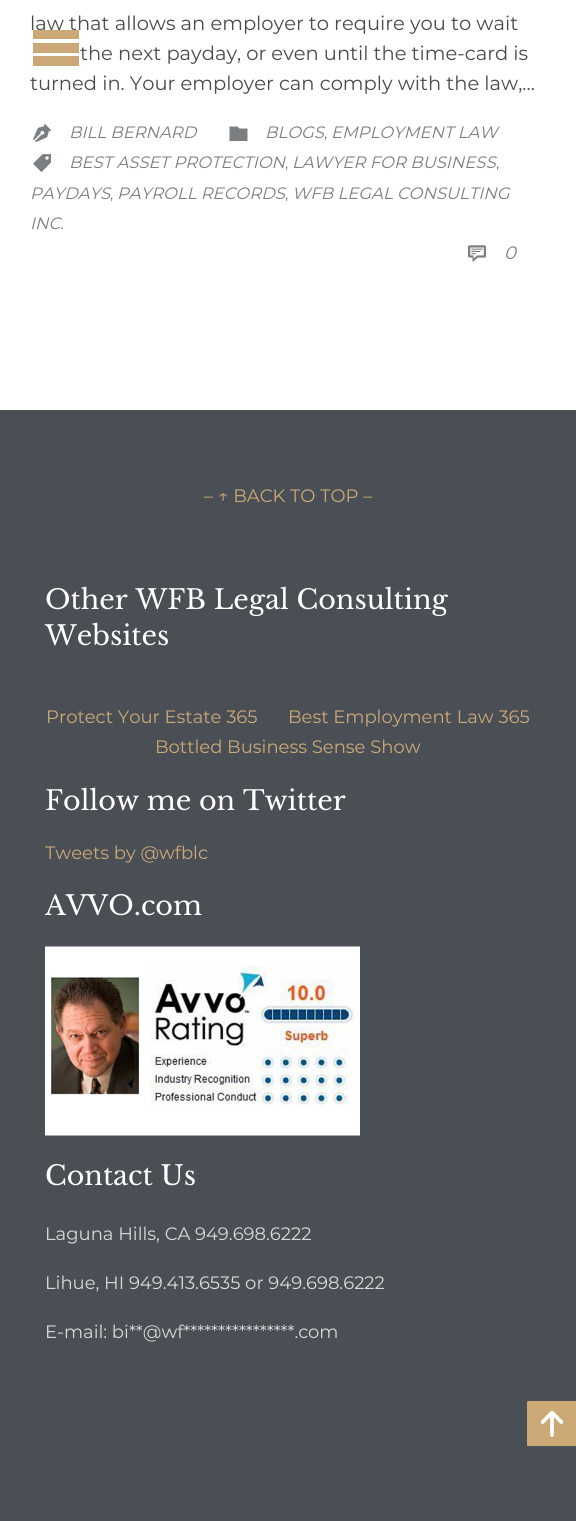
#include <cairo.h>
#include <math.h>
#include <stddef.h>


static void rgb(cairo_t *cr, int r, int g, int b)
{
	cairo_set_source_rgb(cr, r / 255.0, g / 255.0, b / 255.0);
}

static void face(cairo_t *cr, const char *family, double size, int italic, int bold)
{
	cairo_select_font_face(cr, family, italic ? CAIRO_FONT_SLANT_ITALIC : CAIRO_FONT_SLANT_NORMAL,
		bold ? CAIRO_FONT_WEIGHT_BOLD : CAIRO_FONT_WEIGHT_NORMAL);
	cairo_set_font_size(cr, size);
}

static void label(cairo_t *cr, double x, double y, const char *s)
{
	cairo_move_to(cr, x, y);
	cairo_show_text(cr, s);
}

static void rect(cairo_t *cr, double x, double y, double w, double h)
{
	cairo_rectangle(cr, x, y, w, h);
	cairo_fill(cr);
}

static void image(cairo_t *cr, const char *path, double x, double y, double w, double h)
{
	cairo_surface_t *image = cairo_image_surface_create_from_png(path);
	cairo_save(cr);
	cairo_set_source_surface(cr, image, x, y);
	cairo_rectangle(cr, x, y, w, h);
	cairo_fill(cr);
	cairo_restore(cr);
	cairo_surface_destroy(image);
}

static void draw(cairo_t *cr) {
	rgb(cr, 74, 79, 85);
	cairo_paint(cr);
	rgb(cr, 255, 255, 255);
	rect(cr, 0, 0, 576, 410);
	face(cr, "Montserrat", 19.5, 0, 0);
	rgb(cr, 74, 74, 74);
	label(cr, 30, 30, "law that allows an employer to require you to wait");
	label(cr, 80, 60, "the next payday, or even until the time-card is");
	label(cr, 30, 90, "turned in. Your employer can comply with the law,…");
	image(cr, "image0.png", 33, 124, 18, 18);
	face(cr, "Montserrat", 16.5, 1, 0);
	rgb(cr, 124, 127, 130);
	label(cr, 69, 138, "BILL BERNARD");
	cairo_new_path(cr);
	cairo_move_to(cr, 237.5, 126.5);
	cairo_line_to(cr, 239.5, 128.5);
	cairo_line_to(cr, 247.5, 128.5);
	cairo_line_to(cr, 247.5, 141);
	cairo_line_to(cr, 229.5, 141);
	cairo_line_to(cr, 229.5, 126.5);
	cairo_close_path(cr);
	cairo_fill(cr);
	label(cr, 265, 138, "BLOGS");
	label(cr, 331, 138, "EMPLOYMENT LAW");
	face(cr, "Montserrat", 15, 0, 0);
	label(cr, 324, 138, ",");
	image(cr, "image1.png", 33, 154, 18, 18);
	face(cr, "Montserrat", 16.5, 1, 0);
	label(cr, 69, 168, "BEST ASSET PROTECTION");
	face(cr, "Montserrat", 15, 0, 0);
	label(cr, 285, 168, ",");
	face(cr, "Montserrat", 16.5, 1, 0);
	label(cr, 292, 168, "LAWYER FOR BUSINESS");
	face(cr, "Montserrat", 15, 0, 0);
	label(cr, 496, 168, ",");
	face(cr, "Montserrat", 16.5, 1, 0);
	label(cr, 30, 199, "PAYDAYS");
	label(cr, 117, 199, "PAYROLL RECORDS");
	label(cr, 292, 199, "WFB LEGAL CONSULTING");
	face(cr, "Montserrat", 15, 0, 0);
	label(cr, 110, 199, ",");
	label(cr, 285, 199, ",");
	face(cr, "Montserrat", 16.5, 1, 0);
	label(cr, 30, 229, "INC.");
	image(cr, "image2.png", 468, 245, 18, 17);
	face(cr, "Montserrat", 18, 1, 0);
	label(cr, 504, 259, "0");
	face(cr, "Montserrat", 18, 0, 0);
	rgb(cr, 204, 168, 118);
	label(cr, 204, 502, "– ↑ BACK TO TOP –");
	face(cr, "Libre Baskerville", 27, 0, 0);
	rgb(cr, 255, 255, 255);
	label(cr, 45, 609, "Other WFB Legal Consulting");
	label(cr, 45, 645, "Websites");
	face(cr, "Montserrat", 18, 0, 0);
	rgb(cr, 204, 168, 118);
	label(cr, 46, 723, "Protect Your Estate 365");
	label(cr, 288, 723, "Best Employment Law 365");
	label(cr, 155, 753, "Bottled Business Sense Show");
	face(cr, "Libre Baskerville", 27, 0, 0);
	rgb(cr, 255, 255, 255);
	label(cr, 45, 810, "Follow me on Twitter");
	face(cr, "Montserrat", 18, 0, 0);
	rgb(cr, 204, 168, 118);
	label(cr, 45, 859, "Tweets by @wfblc");
	face(cr, "Libre Baskerville", 27, 0, 0);
	rgb(cr, 255, 255, 255);
	label(cr, 45, 915, "AVVO.com");
	image(cr, "image3.png", 45, 946, 315, 190);
	label(cr, 45, 1185, "Contact Us");
	face(cr, "Montserrat", 18, 0, 0);
	rgb(cr, 216, 216, 216);
	label(cr, 45, 1240, "Laguna Hills, CA 949.698.6222");
	label(cr, 45, 1289, "Lihue, HI 949.413.6535 or 949.698.6222");
	label(cr, 45, 1338, "E-mail: bi**@wf****************.c");
	label(cr, 308, 1338, "om");
	rgb(cr, 204, 168, 118);
	cairo_new_path(cr);
	cairo_move_to(cr, 33, 30);
	cairo_line_to(cr, 79, 30);
	cairo_line_to(cr, 79, 39);
	cairo_line_to(cr, 33, 39);
	cairo_close_path(cr);
	cairo_move_to(cr, 33, 43);
	cairo_line_to(cr, 79, 43);
	cairo_line_to(cr, 79, 53);
	cairo_line_to(cr, 33, 53);
	cairo_close_path(cr);
	cairo_move_to(cr, 33, 56);
	cairo_line_to(cr, 79, 56);
	cairo_line_to(cr, 79, 66);
	cairo_line_to(cr, 33, 66);
	cairo_close_path(cr);
	cairo_fill(cr);
	cairo_new_path(cr);
	cairo_move_to(cr, 528.5, 1401);
	cairo_line_to(cr, 576, 1401);
	cairo_line_to(cr, 576, 1446);
	cairo_line_to(cr, 527, 1446);
	cairo_line_to(cr, 527, 1402.5);
	cairo_curve_to(cr, 527, 1401.5, 527.5, 1401, 528.5, 1401);
	cairo_close_path(cr);
	cairo_fill(cr);
	image(cr, "image4.png", 540, 1410, 24, 27);
}

int main(void) {
	cairo_surface_t *surface = cairo_image_surface_create(CAIRO_FORMAT_RGB24, 576, 1521);
	cairo_t *cr = cairo_create(surface);
	cairo_font_options_t *options = cairo_font_options_create();
	cairo_font_options_set_hint_metrics(options, CAIRO_HINT_METRICS_OFF);
	cairo_font_options_set_hint_style(options, CAIRO_HINT_STYLE_NONE);
	cairo_set_font_options(cr, options);
	cairo_set_miter_limit(cr, 4);
	draw(cr);
	cairo_surface_write_to_png(surface, "render.png");
	cairo_font_options_destroy(options);
	cairo_destroy(cr);
	cairo_surface_destroy(surface);
	return 0;
}
